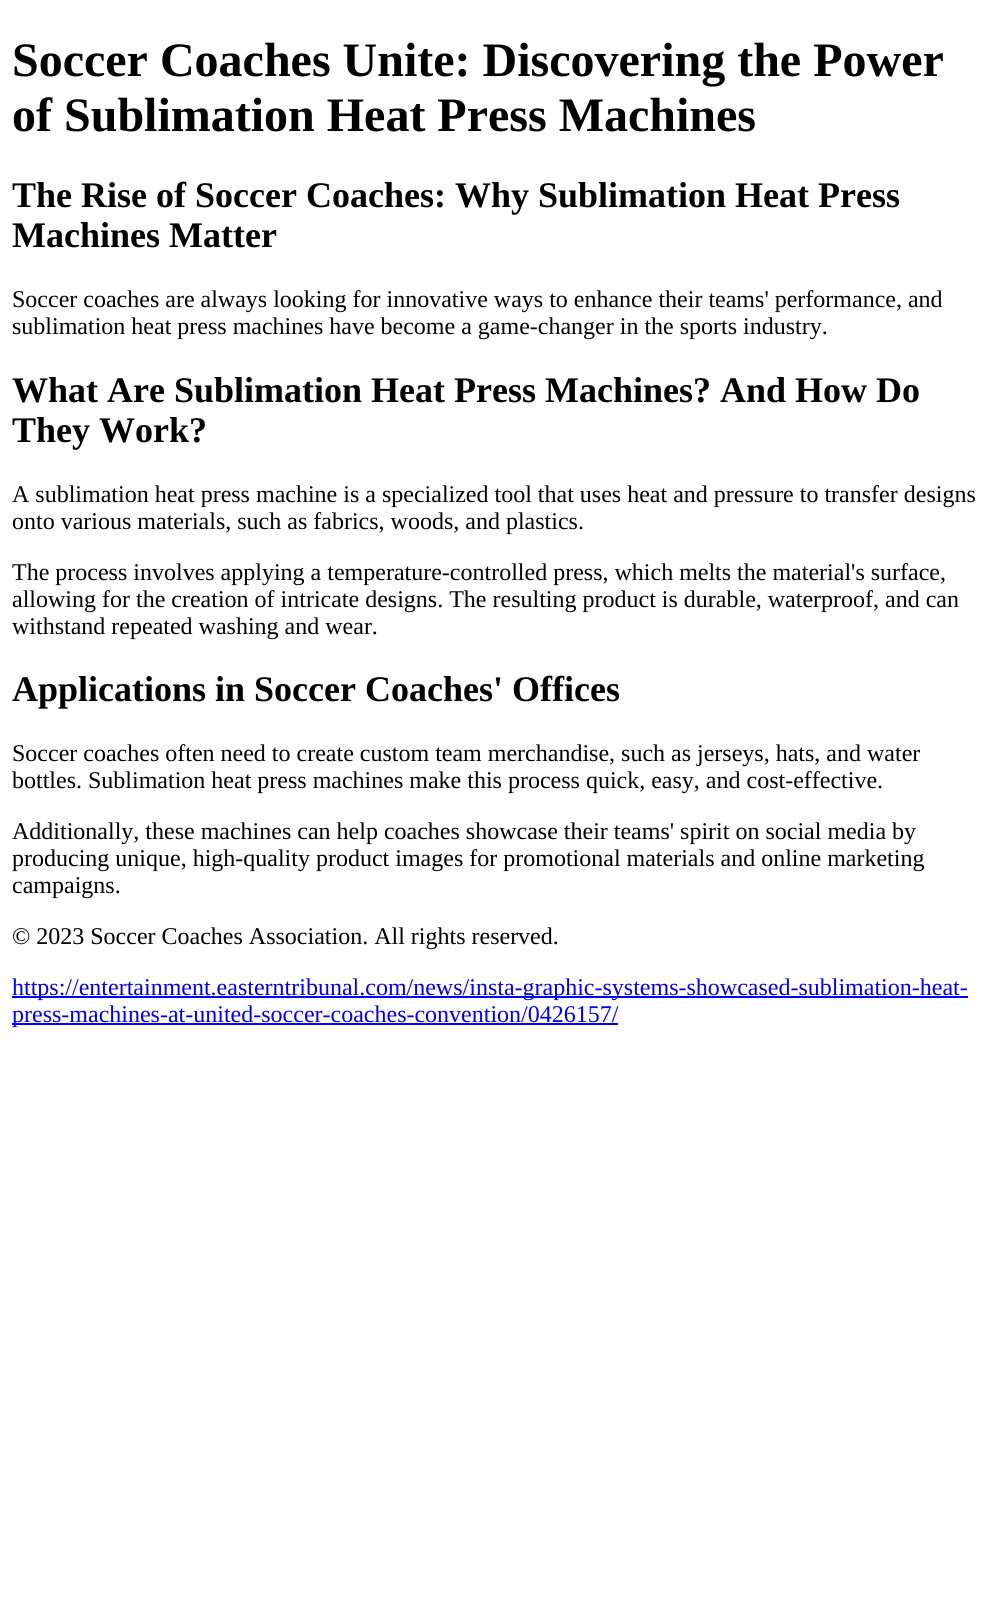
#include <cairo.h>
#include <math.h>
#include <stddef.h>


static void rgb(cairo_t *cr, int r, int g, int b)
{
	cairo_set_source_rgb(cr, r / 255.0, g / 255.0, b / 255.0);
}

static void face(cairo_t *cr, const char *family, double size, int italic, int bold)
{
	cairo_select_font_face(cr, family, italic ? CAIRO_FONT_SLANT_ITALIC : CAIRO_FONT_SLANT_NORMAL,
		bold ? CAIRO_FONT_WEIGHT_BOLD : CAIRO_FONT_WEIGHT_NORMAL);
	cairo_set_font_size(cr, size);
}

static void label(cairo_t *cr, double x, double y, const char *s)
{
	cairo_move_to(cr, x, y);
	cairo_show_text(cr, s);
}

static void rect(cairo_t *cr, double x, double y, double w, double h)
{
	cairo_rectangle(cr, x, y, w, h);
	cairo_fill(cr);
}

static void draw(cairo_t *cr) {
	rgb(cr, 255, 255, 255);
	cairo_paint(cr);
	face(cr, "Liberation Serif", 48, 0, 1);
	rgb(cr, 0, 0, 0);
	label(cr, 12, 76, "Soccer Coaches Unite: Discovering the Power");
	label(cr, 12, 131, "of Sublimation Heat Press Machines");
	face(cr, "Liberation Serif", 36, 0, 1);
	label(cr, 12, 207, "The Rise of Soccer Coaches: Why Sublimation Heat Press");
	label(cr, 12, 247, "Machines Matter");
	face(cr, "Liberation Serif", 24, 0, 0);
	label(cr, 12, 307, "Soccer coaches are always looking for innovative ways to enhance their teams' performance, and");
	label(cr, 12, 334, "sublimation heat press machines have become a game-changer in the sports industry.");
	face(cr, "Liberation Serif", 36, 0, 1);
	label(cr, 12, 402, "What Are Sublimation Heat Press Machines? And How Do");
	label(cr, 12, 442, "They Work?");
	face(cr, "Liberation Serif", 24, 0, 0);
	label(cr, 12, 502, "A sublimation heat press machine is a specialized tool that uses heat and pressure to transfer designs");
	label(cr, 12, 529, "onto various materials, such as fabrics, woods, and plastics.");
	label(cr, 12, 580, "The process involves applying a temperature-controlled press, which melts the material's surface,");
	label(cr, 12, 607, "allowing for the creation of intricate designs. The resulting product is durable, waterproof, and can");
	label(cr, 12, 634, "withstand repeated washing and wear.");
	face(cr, "Liberation Serif", 36, 0, 1);
	label(cr, 12, 701, "Applications in Soccer Coaches' Offices");
	face(cr, "Liberation Serif", 24, 0, 0);
	label(cr, 12, 761, "Soccer coaches often need to create custom team merchandise, such as jerseys, hats, and water");
	label(cr, 12, 788, "bottles. Sublimation heat press machines make this process quick, easy, and cost-effective.");
	label(cr, 12, 839, "Additionally, these machines can help coaches showcase their teams' spirit on social media by");
	label(cr, 12, 866, "producing unique, high-quality product images for promotional materials and online marketing");
	label(cr, 12, 893, "campaigns.");
	label(cr, 12, 944, "© 2023 Soccer Coaches Association. All rights reserved.");
	rgb(cr, 0, 0, 238);
	rect(cr, 12, 996, 956, 2);
	label(cr, 12, 995, "https://entertainment.easterntribunal.com/news/insta-graphic-systems-showcased-sublimation-heat-");
	rect(cr, 12, 1023, 606, 2);
	label(cr, 12, 1022, "press-machines-at-united-soccer-coaches-convention/0426157/");
}

int main(void) {
	cairo_surface_t *surface = cairo_image_surface_create(CAIRO_FORMAT_RGB24, 992, 1600);
	cairo_t *cr = cairo_create(surface);
	cairo_font_options_t *options = cairo_font_options_create();
	cairo_font_options_set_hint_metrics(options, CAIRO_HINT_METRICS_OFF);
	cairo_font_options_set_hint_style(options, CAIRO_HINT_STYLE_NONE);
	cairo_set_font_options(cr, options);
	cairo_set_miter_limit(cr, 4);
	draw(cr);
	cairo_surface_write_to_png(surface, "render.png");
	cairo_font_options_destroy(options);
	cairo_destroy(cr);
	cairo_surface_destroy(surface);
	return 0;
}
